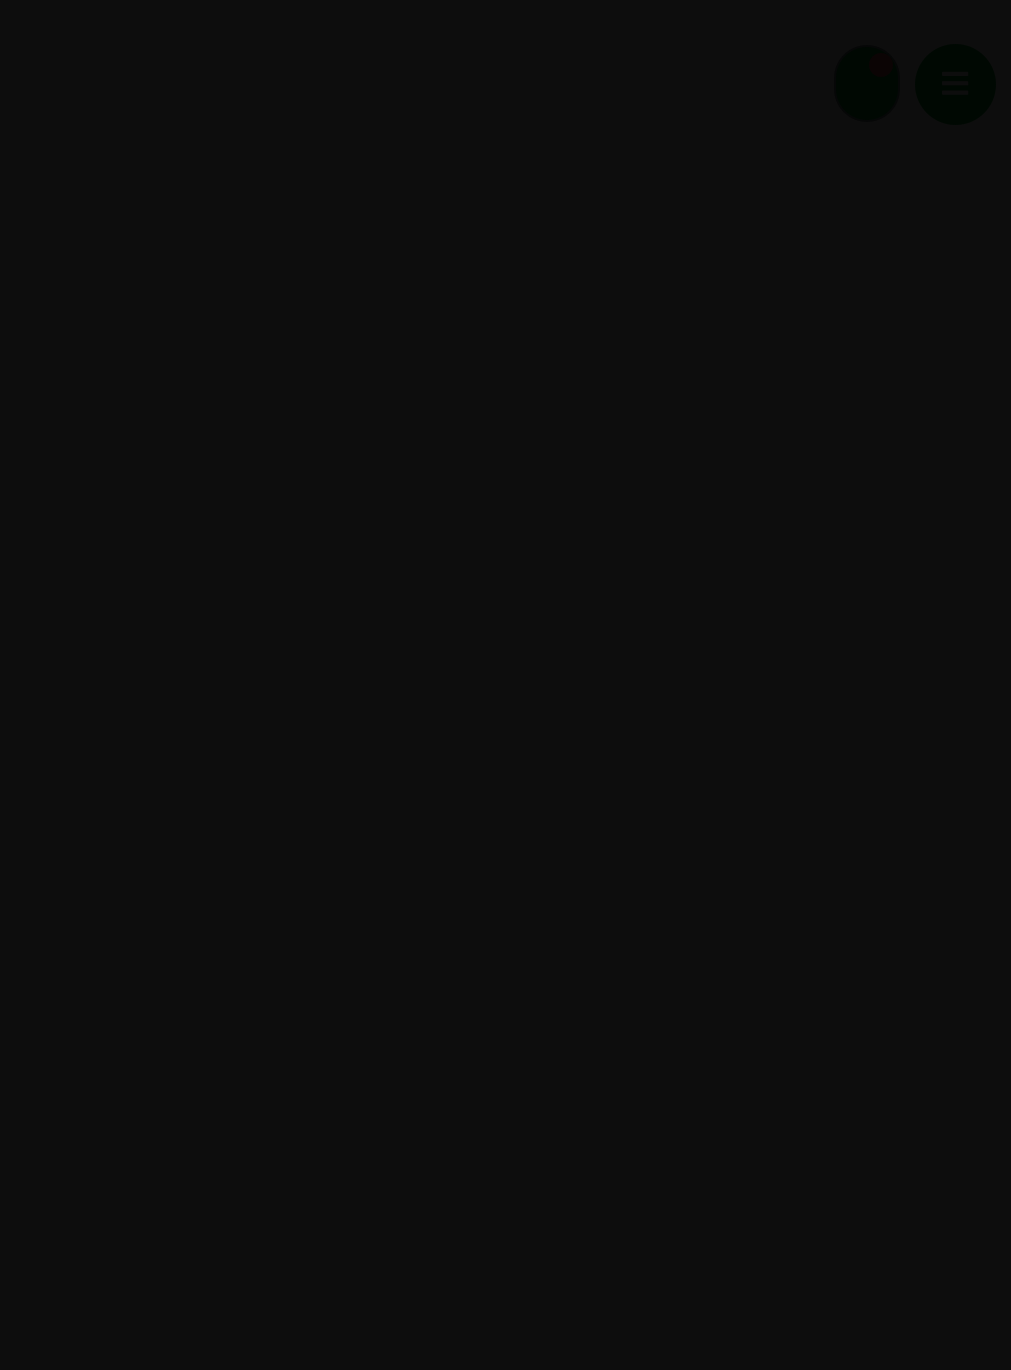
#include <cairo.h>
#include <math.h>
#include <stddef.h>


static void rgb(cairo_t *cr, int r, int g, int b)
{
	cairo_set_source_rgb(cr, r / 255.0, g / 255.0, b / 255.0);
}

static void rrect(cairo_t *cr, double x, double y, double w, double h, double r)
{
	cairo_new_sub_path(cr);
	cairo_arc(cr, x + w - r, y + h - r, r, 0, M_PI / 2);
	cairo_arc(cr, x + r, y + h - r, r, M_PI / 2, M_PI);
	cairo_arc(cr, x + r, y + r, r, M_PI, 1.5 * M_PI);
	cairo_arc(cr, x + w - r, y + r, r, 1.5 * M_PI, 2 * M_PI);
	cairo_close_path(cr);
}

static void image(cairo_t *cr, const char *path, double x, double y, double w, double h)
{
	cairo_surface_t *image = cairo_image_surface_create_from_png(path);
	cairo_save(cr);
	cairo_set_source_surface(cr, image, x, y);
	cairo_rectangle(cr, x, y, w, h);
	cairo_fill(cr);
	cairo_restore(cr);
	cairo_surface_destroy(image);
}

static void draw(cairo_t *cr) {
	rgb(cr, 13, 13, 13);
	cairo_paint(cr);
	rgb(cr, 0, 8, 2);
	rrect(cr, 835, 46, 64, 75, 32);
	cairo_fill_preserve(cr);
	rgb(cr, 6, 7, 7);
	cairo_stroke(cr);
	rgb(cr, 11, 4, 4);
	cairo_arc(cr, 881, 65, 12, 0, 2 * M_PI);
	cairo_fill(cr);
	rgb(cr, 0, 8, 2);
	cairo_arc(cr, 955.5, 84.5, 40.5, 0, 2 * M_PI);
	cairo_fill(cr);
	image(cr, "image0.png", 942, 71, 27, 24);
}

int main(void) {
	cairo_surface_t *surface = cairo_image_surface_create(CAIRO_FORMAT_RGB24, 1011, 1370);
	cairo_t *cr = cairo_create(surface);
	cairo_font_options_t *options = cairo_font_options_create();
	cairo_font_options_set_hint_metrics(options, CAIRO_HINT_METRICS_OFF);
	cairo_font_options_set_hint_style(options, CAIRO_HINT_STYLE_NONE);
	cairo_set_font_options(cr, options);
	cairo_set_miter_limit(cr, 4);
	draw(cr);
	cairo_surface_write_to_png(surface, "render.png");
	cairo_font_options_destroy(options);
	cairo_destroy(cr);
	cairo_surface_destroy(surface);
	return 0;
}
